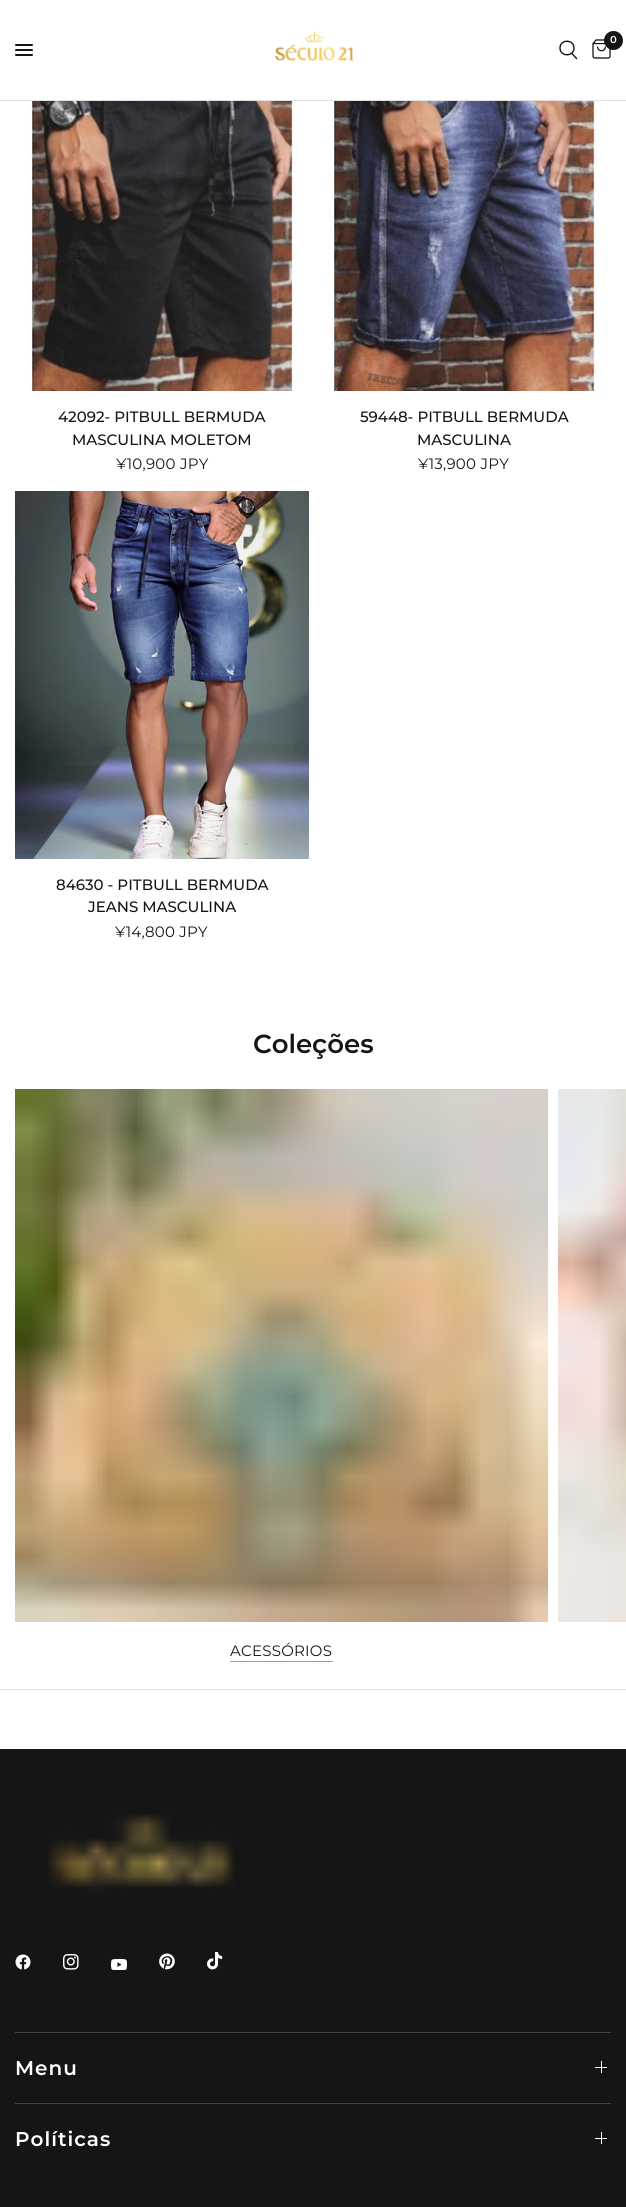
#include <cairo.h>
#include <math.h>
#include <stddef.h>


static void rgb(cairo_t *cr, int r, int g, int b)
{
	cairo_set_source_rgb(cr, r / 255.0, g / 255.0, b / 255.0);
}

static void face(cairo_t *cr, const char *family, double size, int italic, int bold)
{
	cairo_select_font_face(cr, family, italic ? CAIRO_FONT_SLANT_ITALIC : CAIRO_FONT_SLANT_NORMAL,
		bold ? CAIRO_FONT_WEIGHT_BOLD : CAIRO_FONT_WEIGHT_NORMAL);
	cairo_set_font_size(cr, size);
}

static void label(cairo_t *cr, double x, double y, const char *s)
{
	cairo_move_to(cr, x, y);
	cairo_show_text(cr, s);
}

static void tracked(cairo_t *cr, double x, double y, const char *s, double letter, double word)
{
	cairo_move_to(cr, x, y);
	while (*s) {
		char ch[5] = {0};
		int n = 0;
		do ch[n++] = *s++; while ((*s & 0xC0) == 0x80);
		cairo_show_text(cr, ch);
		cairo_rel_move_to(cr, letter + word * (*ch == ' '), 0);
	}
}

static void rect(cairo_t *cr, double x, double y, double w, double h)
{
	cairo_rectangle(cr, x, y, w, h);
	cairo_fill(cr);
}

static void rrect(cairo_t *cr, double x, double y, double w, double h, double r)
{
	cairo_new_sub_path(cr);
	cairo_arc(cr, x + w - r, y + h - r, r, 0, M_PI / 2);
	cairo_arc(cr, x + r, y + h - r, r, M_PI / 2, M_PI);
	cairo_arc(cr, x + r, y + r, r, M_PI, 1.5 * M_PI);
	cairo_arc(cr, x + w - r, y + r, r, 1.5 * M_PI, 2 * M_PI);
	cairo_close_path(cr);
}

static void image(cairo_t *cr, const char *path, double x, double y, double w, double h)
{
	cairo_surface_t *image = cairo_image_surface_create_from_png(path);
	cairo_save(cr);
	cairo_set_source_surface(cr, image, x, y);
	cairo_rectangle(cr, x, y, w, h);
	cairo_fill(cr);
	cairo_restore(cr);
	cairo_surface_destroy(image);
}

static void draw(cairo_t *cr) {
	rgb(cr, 255, 255, 255);
	cairo_paint(cr);
	rgb(cr, 226, 226, 226);
	rect(cr, 0, 100, 626, 1);
	image(cr, "image0.png", 275, 31, 79, 30);
	cairo_new_path(cr);
	cairo_move_to(cr, 572, 53.5);
	cairo_line_to(cr, 576.5, 58.5);
	cairo_move_to(cr, 574, 48);
	cairo_curve_to(cr, 574, 57, 560, 57, 560, 48);
	cairo_curve_to(cr, 560, 39, 574, 39, 574, 48);
	cairo_close_path(cr);
	rgb(cr, 21, 21, 21);
	cairo_set_line_width(cr, 1.4);
	cairo_set_line_cap(cr, CAIRO_LINE_CAP_ROUND);
	cairo_set_line_join(cr, CAIRO_LINE_JOIN_ROUND);
	cairo_stroke(cr);
	image(cr, "image1.png", 592, 39, 19, 20);
	cairo_arc(cr, 613.5, 40.5, 9.5, 0, 2 * M_PI);
	cairo_fill(cr);
	face(cr, "Montserrat SemiBold", 10, 0, 0);
	rgb(cr, 255, 255, 255);
	label(cr, 610, 43, "0");
	rgb(cr, 21, 21, 21);
	rrect(cr, 15, 44, 18, 2, 1);
	cairo_fill(cr);
	rrect(cr, 15, 49, 18, 2, 1);
	cairo_fill(cr);
	rrect(cr, 15, 54, 18, 2, 1);
	cairo_fill(cr);
	image(cr, "image2.png", 29, 101, 267, 290);
	face(cr, "Montserrat Medium", 15, 0, 0);
	label(cr, 58, 422, "42092- PITBULL BERMUDA");
	label(cr, 72, 445, "MASCULINA MOLETOM");
	face(cr, "Montserrat", 15, 0, 0);
	tracked(cr, 116, 469, "¥10,900 JPY", 0.25, 0);
	image(cr, "image3.png", 331, 101, 265, 290);
	face(cr, "Montserrat Medium", 15, 0, 0);
	label(cr, 360, 422, "59448- PITBULL BERMUDA");
	label(cr, 417, 445, "MASCULINA");
	face(cr, "Montserrat", 15, 0, 0);
	tracked(cr, 418, 469, "¥13,900 JPY", 0.25, 0);
	image(cr, "image4.png", 15, 491, 294, 368);
	face(cr, "Montserrat Medium", 15, 0, 0);
	label(cr, 56, 890, "84630 - PITBULL BERMUDA");
	label(cr, 88, 912, "JEANS MASCULINA");
	face(cr, "Montserrat", 15, 0, 0);
	tracked(cr, 115, 937, "¥14,800 JPY", 0.25, 0);
	face(cr, "Montserrat SemiBold", 26, 0, 0);
	label(cr, 253, 1053, "Coleções");
	image(cr, "image5.png", 558, 1089, 68, 533);
	image(cr, "image6.png", 15, 1089, 533, 533);
	face(cr, "Montserrat", 15, 0, 0);
	tracked(cr, 230, 1656, "ACESSÓRIOS", 0.25, 0);
	rgb(cr, 161, 161, 161);
	rect(cr, 230, 1661, 103, 1);
	rgb(cr, 226, 226, 226);
	rect(cr, 0, 1689, 626, 1);
	rgb(cr, 21, 21, 21);
	rect(cr, 0, 1749, 626, 458);
	image(cr, "image7.png", 48, 1814, 187, 80);
	image(cr, "image8.png", 15, 1954, 16, 16);
	image(cr, "image9.png", 63, 1954, 16, 16);
	image(cr, "image10.png", 111, 1959, 16, 11);
	image(cr, "image11.png", 159, 1953, 16, 17);
	image(cr, "image12.png", 207, 1952, 16, 18);
	rgb(cr, 68, 68, 68);
	rect(cr, 15, 2032, 596, 1);
	face(cr, "Montserrat SemiBold", 20, 0, 0);
	rgb(cr, 255, 255, 255);
	tracked(cr, 15, 2075, "Menu", 1, 0);
	rect(cr, 601, 2061, 1, 12);
	rect(cr, 595, 2067, 12, 1);
	rgb(cr, 68, 68, 68);
	rect(cr, 15, 2103, 596, 1);
	rgb(cr, 255, 255, 255);
	tracked(cr, 15, 2146, "Políticas", 1, 0);
	rect(cr, 601, 2132, 1, 12);
	rect(cr, 595, 2138, 12, 1);
}

int main(void) {
	cairo_surface_t *surface = cairo_image_surface_create(CAIRO_FORMAT_RGB24, 626, 2207);
	cairo_t *cr = cairo_create(surface);
	cairo_font_options_t *options = cairo_font_options_create();
	cairo_font_options_set_hint_metrics(options, CAIRO_HINT_METRICS_OFF);
	cairo_font_options_set_hint_style(options, CAIRO_HINT_STYLE_NONE);
	cairo_set_font_options(cr, options);
	cairo_set_miter_limit(cr, 4);
	draw(cr);
	cairo_surface_write_to_png(surface, "render.png");
	cairo_font_options_destroy(options);
	cairo_destroy(cr);
	cairo_surface_destroy(surface);
	return 0;
}
